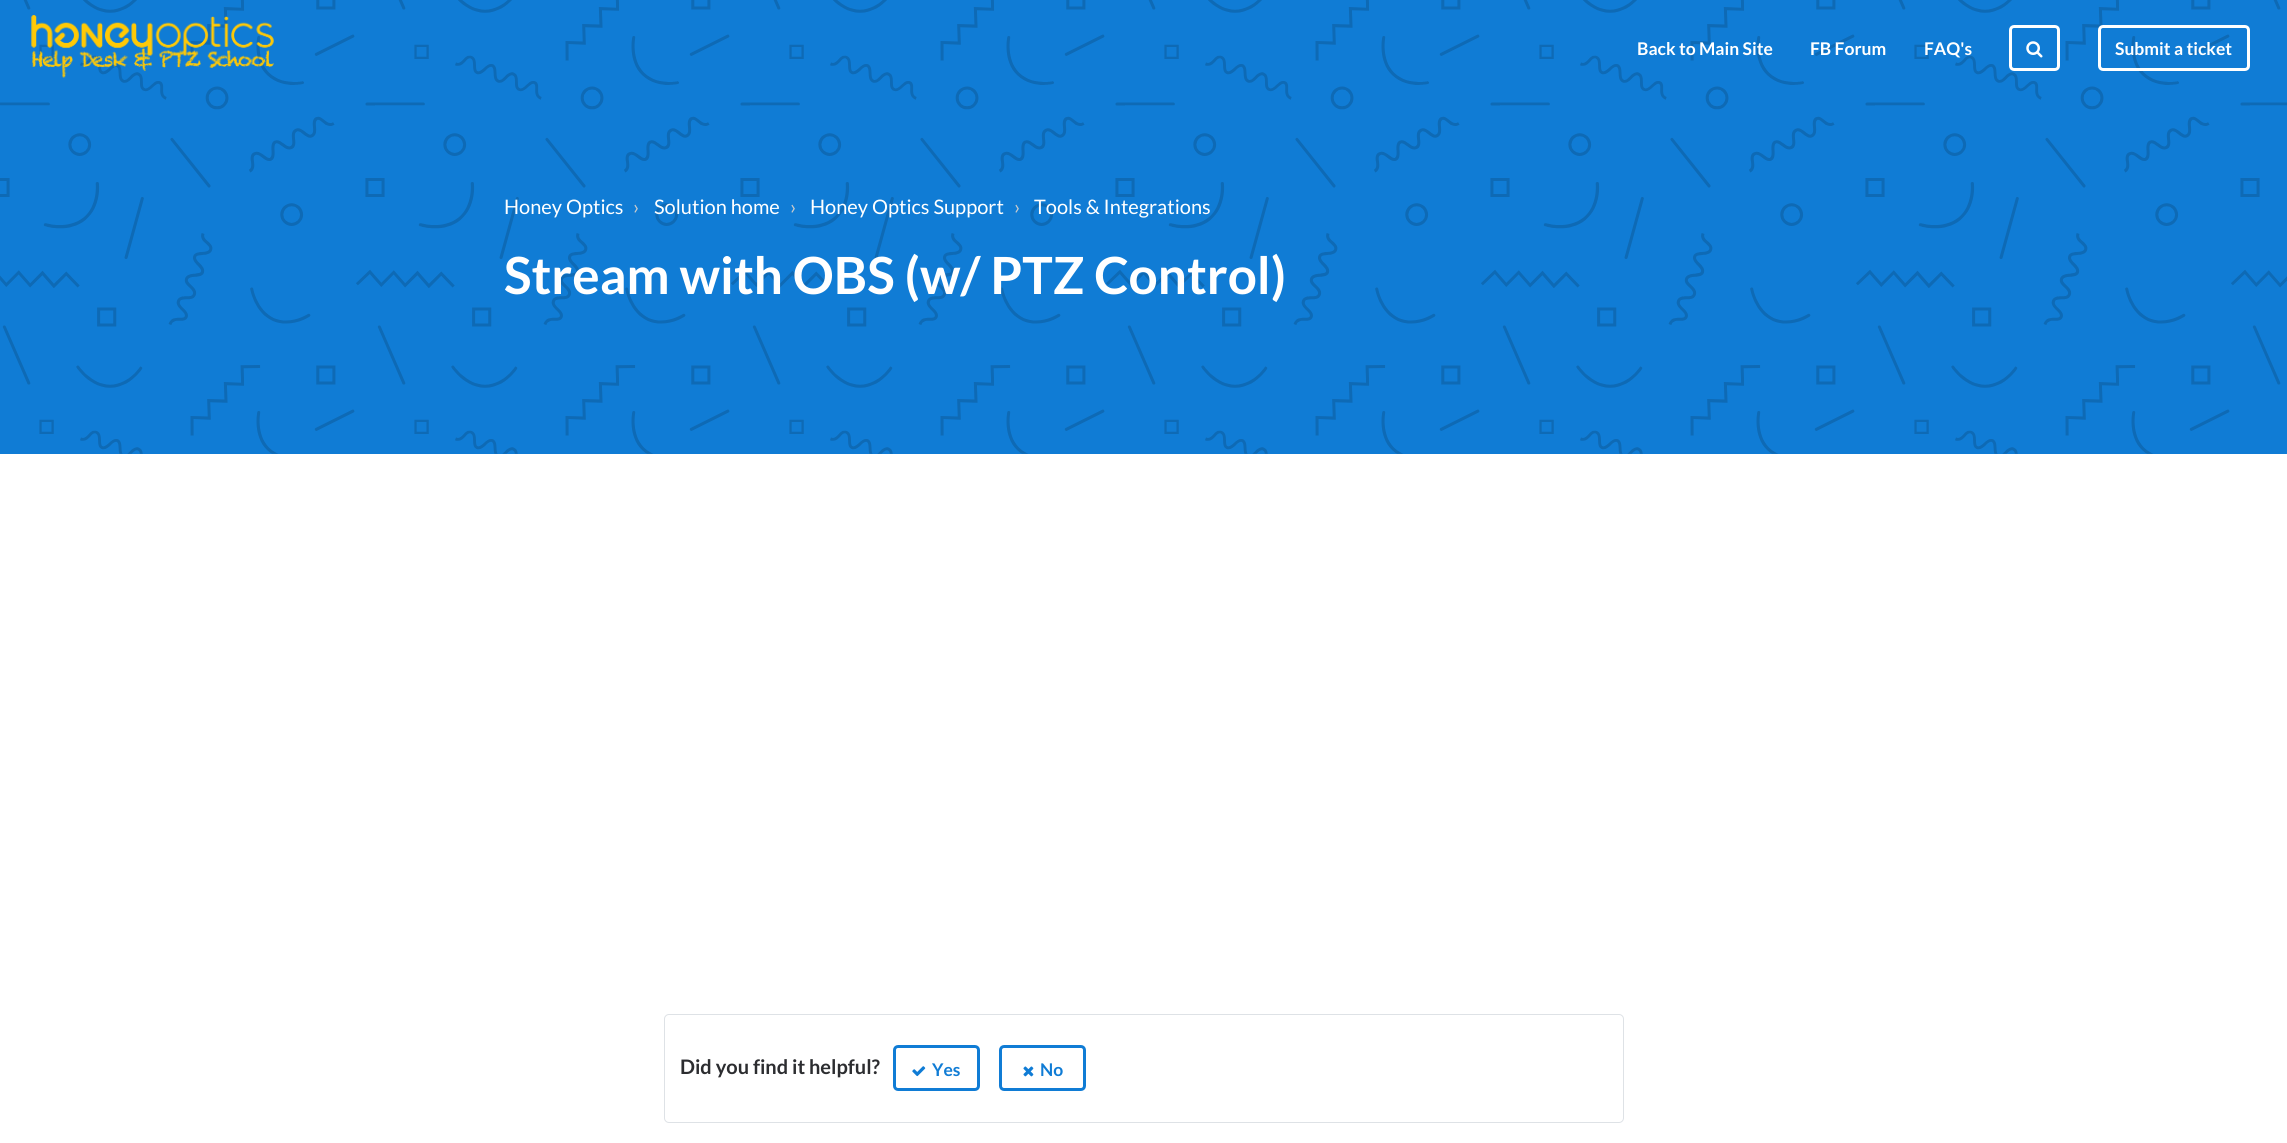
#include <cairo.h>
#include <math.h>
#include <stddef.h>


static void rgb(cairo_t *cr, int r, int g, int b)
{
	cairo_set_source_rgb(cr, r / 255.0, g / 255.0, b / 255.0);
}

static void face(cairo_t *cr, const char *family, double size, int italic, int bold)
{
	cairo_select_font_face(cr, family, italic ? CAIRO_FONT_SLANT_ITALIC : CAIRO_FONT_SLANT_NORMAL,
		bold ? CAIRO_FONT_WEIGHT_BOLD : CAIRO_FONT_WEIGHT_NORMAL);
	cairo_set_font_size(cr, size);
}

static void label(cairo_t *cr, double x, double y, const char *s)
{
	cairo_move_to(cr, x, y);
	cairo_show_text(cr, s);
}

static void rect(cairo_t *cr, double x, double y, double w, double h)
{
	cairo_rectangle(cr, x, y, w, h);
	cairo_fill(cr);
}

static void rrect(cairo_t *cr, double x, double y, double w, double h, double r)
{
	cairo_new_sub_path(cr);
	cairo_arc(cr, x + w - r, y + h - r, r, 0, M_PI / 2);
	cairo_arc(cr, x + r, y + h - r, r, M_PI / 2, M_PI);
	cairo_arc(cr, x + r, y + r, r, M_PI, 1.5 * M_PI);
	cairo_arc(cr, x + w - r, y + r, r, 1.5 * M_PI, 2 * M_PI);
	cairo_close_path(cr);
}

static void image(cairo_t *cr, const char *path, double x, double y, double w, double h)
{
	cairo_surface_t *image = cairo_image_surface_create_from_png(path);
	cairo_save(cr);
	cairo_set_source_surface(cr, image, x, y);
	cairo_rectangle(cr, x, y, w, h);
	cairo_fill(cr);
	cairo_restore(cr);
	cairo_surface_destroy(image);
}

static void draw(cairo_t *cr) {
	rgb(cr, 255, 255, 255);
	cairo_paint(cr);
	rgb(cr, 16, 124, 213);
	rect(cr, 0, 0, 2287, 454);
	image(cr, "image2.png", 0, 0, 2287, 454);
	image(cr, "image0.png", 31, 15, 243, 63);
	face(cr, "Lato", 17.5, 0, 1);
	rgb(cr, 255, 255, 255);
	label(cr, 1637, 55, "Back to Main Site");
	label(cr, 1810, 55, "FB Forum");
	label(cr, 1924, 55, "FAQ's");
	rrect(cr, 2010.5, 26.5, 48, 43, 3.5);
	cairo_set_line_width(cr, 3);
	cairo_stroke(cr);
	image(cr, "image1.png", 2026, 41, 17, 17);
	rrect(cr, 2099.5, 26.5, 149, 43, 3.5);
	cairo_stroke(cr);
	label(cr, 2115, 55, "Submit a ticket");
	face(cr, "Lato", 20, 0, 0);
	label(cr, 504, 214, "Honey Optics");
	rgb(cr, 204, 204, 204);
	label(cr, 633, 214, "›");
	rgb(cr, 255, 255, 255);
	label(cr, 654, 214, "Solution home");
	rgb(cr, 204, 204, 204);
	label(cr, 790, 214, "›");
	rgb(cr, 255, 255, 255);
	label(cr, 810, 214, "Honey Optics Support");
	rgb(cr, 204, 204, 204);
	label(cr, 1014, 214, "›");
	rgb(cr, 255, 255, 255);
	label(cr, 1034, 214, "Tools & Integrations");
	face(cr, "Lato", 51.25, 0, 1);
	label(cr, 504, 294, "Stream with OBS (w/ PTZ Control)");
	rrect(cr, 664.5, 1014.5, 959, 108, 4.5);
	rgb(cr, 222, 226, 230);
	cairo_set_line_width(cr, 1);
	cairo_stroke(cr);
	face(cr, "Lato", 20, 0, 1);
	rgb(cr, 44, 45, 48);
	label(cr, 680, 1074, "Did you find it helpful?");
	rrect(cr, 894.5, 1046.5, 84, 43, 3.5);
	rgb(cr, 16, 124, 213);
	cairo_set_line_width(cr, 3);
	cairo_stroke(cr);
	image(cr, "image3.png", 912, 1066, 14, 11);
	face(cr, "Lato", 17.5, 0, 1);
	label(cr, 932, 1076, "Yes");
	rrect(cr, 1000.5, 1046.5, 84, 43, 3.5);
	cairo_stroke(cr);
	image(cr, "image4.png", 1023, 1066, 11, 11);
	label(cr, 1040, 1076, "No");
}

int main(void) {
	cairo_surface_t *surface = cairo_image_surface_create(CAIRO_FORMAT_RGB24, 2287, 1143);
	cairo_t *cr = cairo_create(surface);
	cairo_font_options_t *options = cairo_font_options_create();
	cairo_font_options_set_hint_metrics(options, CAIRO_HINT_METRICS_OFF);
	cairo_font_options_set_hint_style(options, CAIRO_HINT_STYLE_NONE);
	cairo_set_font_options(cr, options);
	cairo_set_miter_limit(cr, 4);
	draw(cr);
	cairo_surface_write_to_png(surface, "render.png");
	cairo_font_options_destroy(options);
	cairo_destroy(cr);
	cairo_surface_destroy(surface);
	return 0;
}
